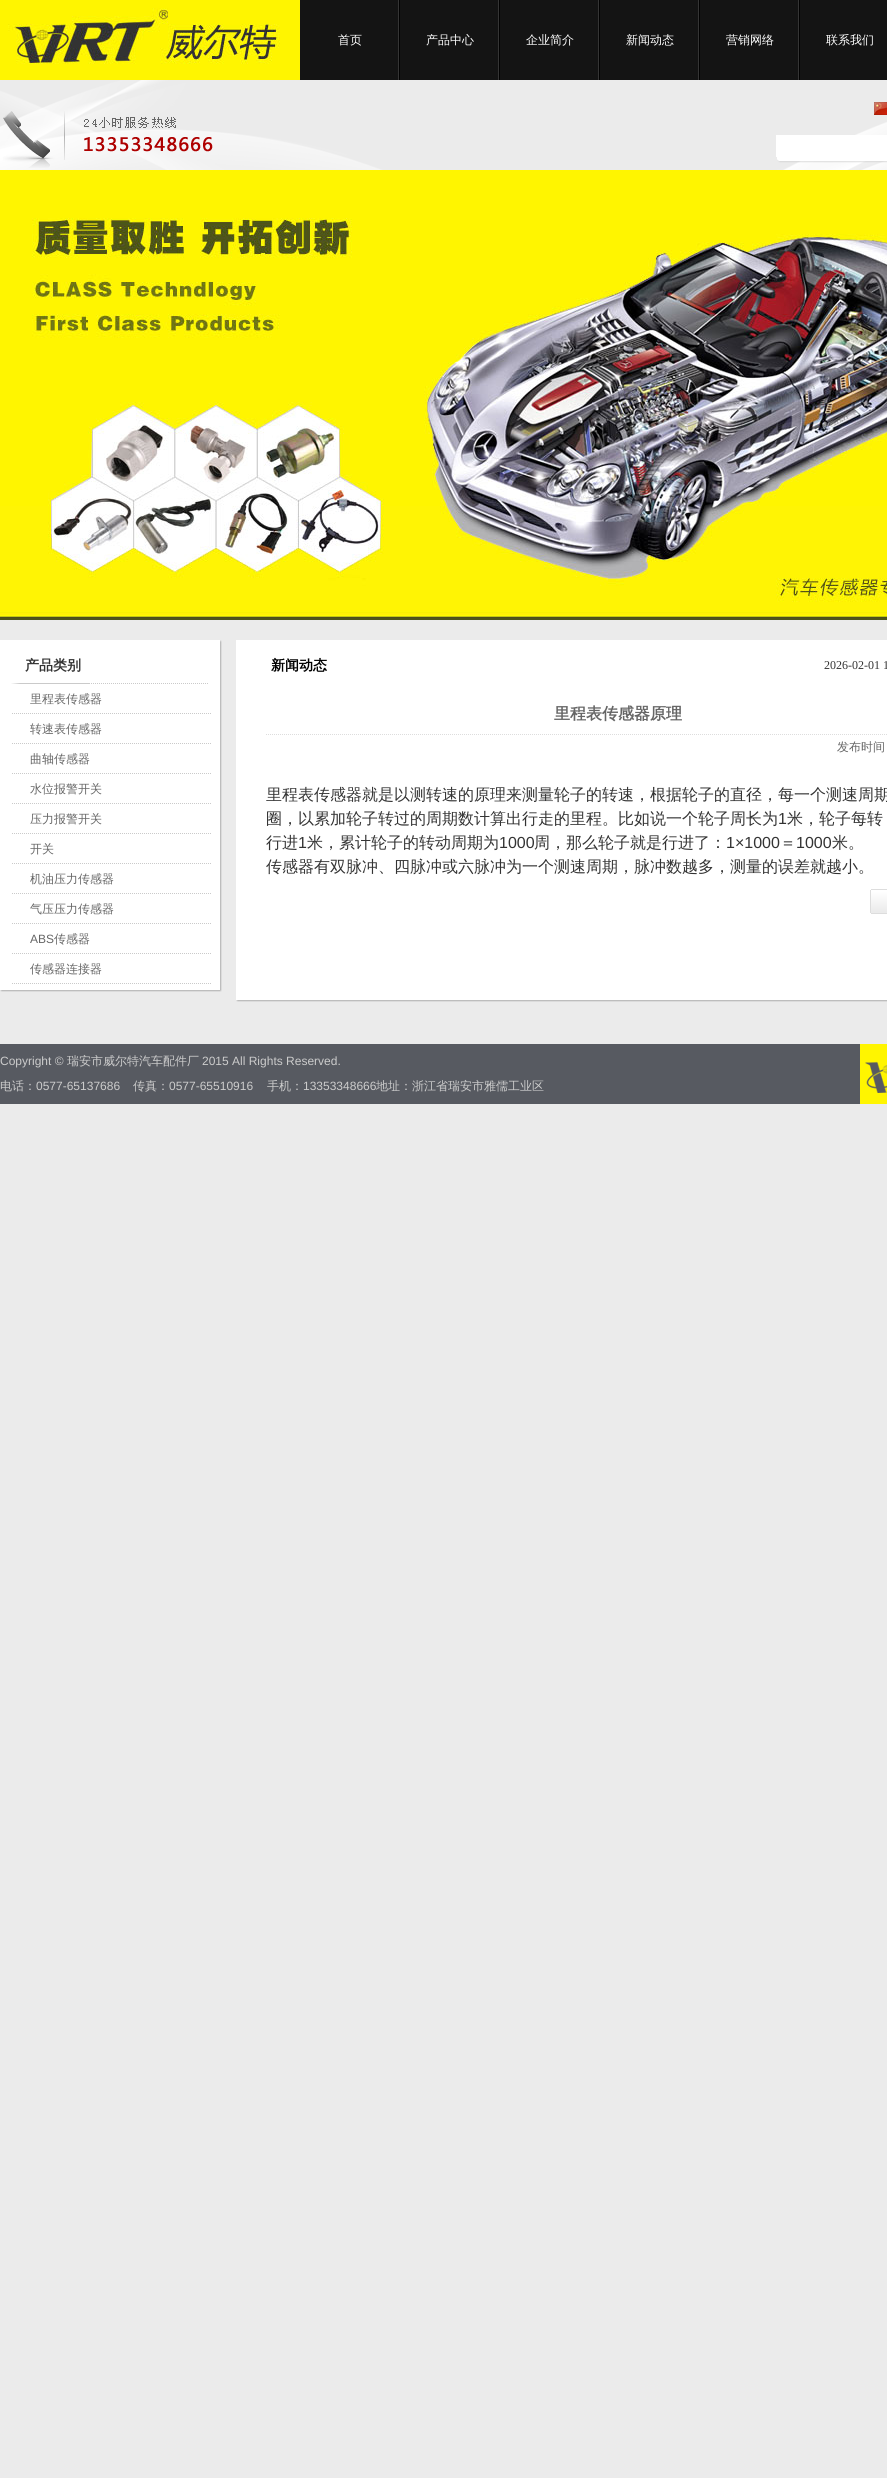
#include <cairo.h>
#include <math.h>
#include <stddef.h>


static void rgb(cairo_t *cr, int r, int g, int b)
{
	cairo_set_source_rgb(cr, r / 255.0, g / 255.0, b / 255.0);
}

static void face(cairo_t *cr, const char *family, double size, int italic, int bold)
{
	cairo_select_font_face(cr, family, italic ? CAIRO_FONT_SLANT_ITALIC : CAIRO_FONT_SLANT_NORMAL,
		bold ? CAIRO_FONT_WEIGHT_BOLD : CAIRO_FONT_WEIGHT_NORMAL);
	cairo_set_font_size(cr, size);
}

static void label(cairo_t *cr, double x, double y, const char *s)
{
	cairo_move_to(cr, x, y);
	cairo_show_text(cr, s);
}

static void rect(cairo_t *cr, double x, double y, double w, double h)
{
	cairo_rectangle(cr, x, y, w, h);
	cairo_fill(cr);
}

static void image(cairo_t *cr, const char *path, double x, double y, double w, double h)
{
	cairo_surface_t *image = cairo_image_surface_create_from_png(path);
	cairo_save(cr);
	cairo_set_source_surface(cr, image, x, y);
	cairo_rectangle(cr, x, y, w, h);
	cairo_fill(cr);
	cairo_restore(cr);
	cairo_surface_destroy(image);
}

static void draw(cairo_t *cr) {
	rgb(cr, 235, 235, 235);
	cairo_paint(cr);
	image(cr, "image0.png", 0, 0, 887, 170);
	image(cr, "image1.png", 0, 0, 300, 80);
	image(cr, "image2.png", 398, 0, 402, 80);
	face(cr, "WenQuanYi Zen Hei Medium", 12, 0, 0);
	rgb(cr, 255, 255, 255);
	label(cr, 338, 44, "首页");
	label(cr, 426, 44, "产品中心");
	label(cr, 526, 44, "企业简介");
	label(cr, 626, 44, "新闻动态");
	label(cr, 726, 44, "营销网络");
	label(cr, 826, 44, "联系我们");
	image(cr, "image3.png", 874, 102, 13, 13);
	image(cr, "image4.png", 3, 111, 210, 57);
	image(cr, "image5.png", 777, 157, 110, 6);
	rect(cr, 776, 135, 111, 22);
	image(cr, "image6.png", 0, 170, 887, 450);
	image(cr, "image7.png", 0, 640, 222, 44);
	face(cr, "WenQuanYi Zen Hei", 14, 0, 1);
	rgb(cr, 51, 51, 51);
	label(cr, 25, 670, "产品类别");
	image(cr, "image8.png", 0, 684, 222, 300);
	image(cr, "image9.png", 12, 713, 199, 1);
	face(cr, "WenQuanYi Zen Hei Medium", 12, 0, 0);
	rgb(cr, 102, 102, 102);
	label(cr, 30, 703, "里程表传感器");
	image(cr, "image9.png", 12, 743, 199, 1);
	label(cr, 30, 733, "转速表传感器");
	image(cr, "image9.png", 12, 773, 199, 1);
	label(cr, 30, 763, "曲轴传感器");
	image(cr, "image9.png", 12, 803, 199, 1);
	label(cr, 30, 793, "水位报警开关");
	image(cr, "image9.png", 12, 833, 199, 1);
	label(cr, 30, 823, "压力报警开关");
	image(cr, "image9.png", 12, 863, 199, 1);
	label(cr, 30, 853, "开关");
	image(cr, "image9.png", 12, 893, 199, 1);
	label(cr, 30, 883, "机油压力传感器");
	image(cr, "image9.png", 12, 923, 199, 1);
	label(cr, 30, 913, "气压压力传感器");
	image(cr, "image9.png", 12, 953, 199, 1);
	face(cr, "Liberation Sans", 12, 0, 0);
	label(cr, 30, 943, "ABS");
	face(cr, "WenQuanYi Zen Hei Medium", 12, 0, 0);
	label(cr, 54, 943, "传感器");
	image(cr, "image9.png", 12, 983, 199, 1);
	label(cr, 30, 973, "传感器连接器");
	image(cr, "image10.png", 0, 984, 222, 8);
	rgb(cr, 255, 255, 255);
	rect(cr, 236, 640, 651, 354);
	face(cr, "WenQuanYi Zen Hei", 14, 0, 1);
	rgb(cr, 0, 0, 0);
	label(cr, 271, 670, "新闻动态");
	face(cr, "Liberation Serif", 12, 0, 0);
	rgb(cr, 51, 51, 51);
	label(cr, 824, 669, "2026-02-01 1");
	cairo_new_path(cr);
	cairo_move_to(cr, 266, 734.5);
	cairo_line_to(cr, 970, 734.5);
	rgb(cr, 221, 221, 221);
	cairo_set_line_width(cr, 1);
	cairo_set_dash(cr, (double[]){1, 1}, 2, 0);
	cairo_stroke(cr);
	face(cr, "WenQuanYi Zen Hei", 16, 0, 1);
	rgb(cr, 102, 102, 102);
	label(cr, 554, 719, "里程表传感器原理");
	face(cr, "WenQuanYi Zen Hei Medium", 12, 0, 0);
	label(cr, 837, 751, "发布时间");
	face(cr, "WenQuanYi Zen Hei Medium", 16, 0, 0);
	rgb(cr, 51, 51, 51);
	label(cr, 266, 800, "里程表传感器就是以测转速的原理来测量轮子的转速，根据轮子的直径，每一个测速周期");
	label(cr, 266, 824, "圈，以累加轮子转过的周期数计算出行走的里程。比如说一个轮子周长为");
	face(cr, "Liberation Sans", 16, 0, 0);
	label(cr, 778, 824, "1");
	face(cr, "WenQuanYi Zen Hei Medium", 16, 0, 0);
	label(cr, 787, 824, "米，轮子每转");
	label(cr, 266, 848, "行进");
	face(cr, "Liberation Sans", 16, 0, 0);
	label(cr, 298, 848, "1");
	face(cr, "WenQuanYi Zen Hei Medium", 16, 0, 0);
	label(cr, 307, 848, "米，累计轮子的转动周期为");
	face(cr, "Liberation Sans", 16, 0, 0);
	label(cr, 499, 848, "1000");
	face(cr, "WenQuanYi Zen Hei Medium", 16, 0, 0);
	label(cr, 534, 848, "周，那么轮子就是行进了：");
	face(cr, "Liberation Sans", 16, 0, 0);
	label(cr, 726, 848, "1×1000");
	face(cr, "WenQuanYi Zen Hei Medium", 16, 0, 0);
	label(cr, 780, 848, "＝");
	face(cr, "Liberation Sans", 16, 0, 0);
	label(cr, 796, 848, "1000");
	face(cr, "WenQuanYi Zen Hei Medium", 16, 0, 0);
	label(cr, 832, 848, "米。");
	label(cr, 266, 872, "传感器有双脉冲、四脉冲或六脉冲为一个测速周期，脉冲数越多，测量的误差就越小。");
	image(cr, "image11.png", 870, 889, 17, 25);
	image(cr, "image12.png", 236, 994, 651, 8);
	rgb(cr, 87, 90, 97);
	rect(cr, 0, 1044, 860, 60);
	face(cr, "Liberation Sans", 12, 0, 0);
	rgb(cr, 204, 204, 204);
	label(cr, 0, 1065, "Copyright ©");
	face(cr, "WenQuanYi Zen Hei Medium", 12, 0, 0);
	label(cr, 67, 1065, "瑞安市威尔特汽车配件厂");
	face(cr, "Liberation Sans", 12, 0, 0);
	label(cr, 202, 1065, "2015 All Rights Reserved.");
	face(cr, "WenQuanYi Zen Hei Medium", 12, 0, 0);
	label(cr, 0, 1090, "电话：");
	face(cr, "Liberation Sans", 12, 0, 0);
	label(cr, 36, 1090, "0577-65137686");
	face(cr, "WenQuanYi Zen Hei Medium", 12, 0, 0);
	label(cr, 133, 1090, "传真：");
	face(cr, "Liberation Sans", 12, 0, 0);
	label(cr, 169, 1090, "0577-65510916");
	face(cr, "WenQuanYi Zen Hei Medium", 12, 0, 0);
	label(cr, 267, 1090, "手机：");
	face(cr, "Liberation Sans", 12, 0, 0);
	label(cr, 303, 1090, "13353348666");
	face(cr, "WenQuanYi Zen Hei Medium", 12, 0, 0);
	label(cr, 376, 1090, "地址：浙江省瑞安市雅儒工业区");
	image(cr, "image13.png", 860, 1044, 27, 60);
}

int main(void) {
	cairo_surface_t *surface = cairo_image_surface_create(CAIRO_FORMAT_RGB24, 887, 2478);
	cairo_t *cr = cairo_create(surface);
	cairo_font_options_t *options = cairo_font_options_create();
	cairo_font_options_set_hint_metrics(options, CAIRO_HINT_METRICS_OFF);
	cairo_font_options_set_hint_style(options, CAIRO_HINT_STYLE_NONE);
	cairo_set_font_options(cr, options);
	cairo_set_miter_limit(cr, 4);
	draw(cr);
	cairo_surface_write_to_png(surface, "render.png");
	cairo_font_options_destroy(options);
	cairo_destroy(cr);
	cairo_surface_destroy(surface);
	return 0;
}
